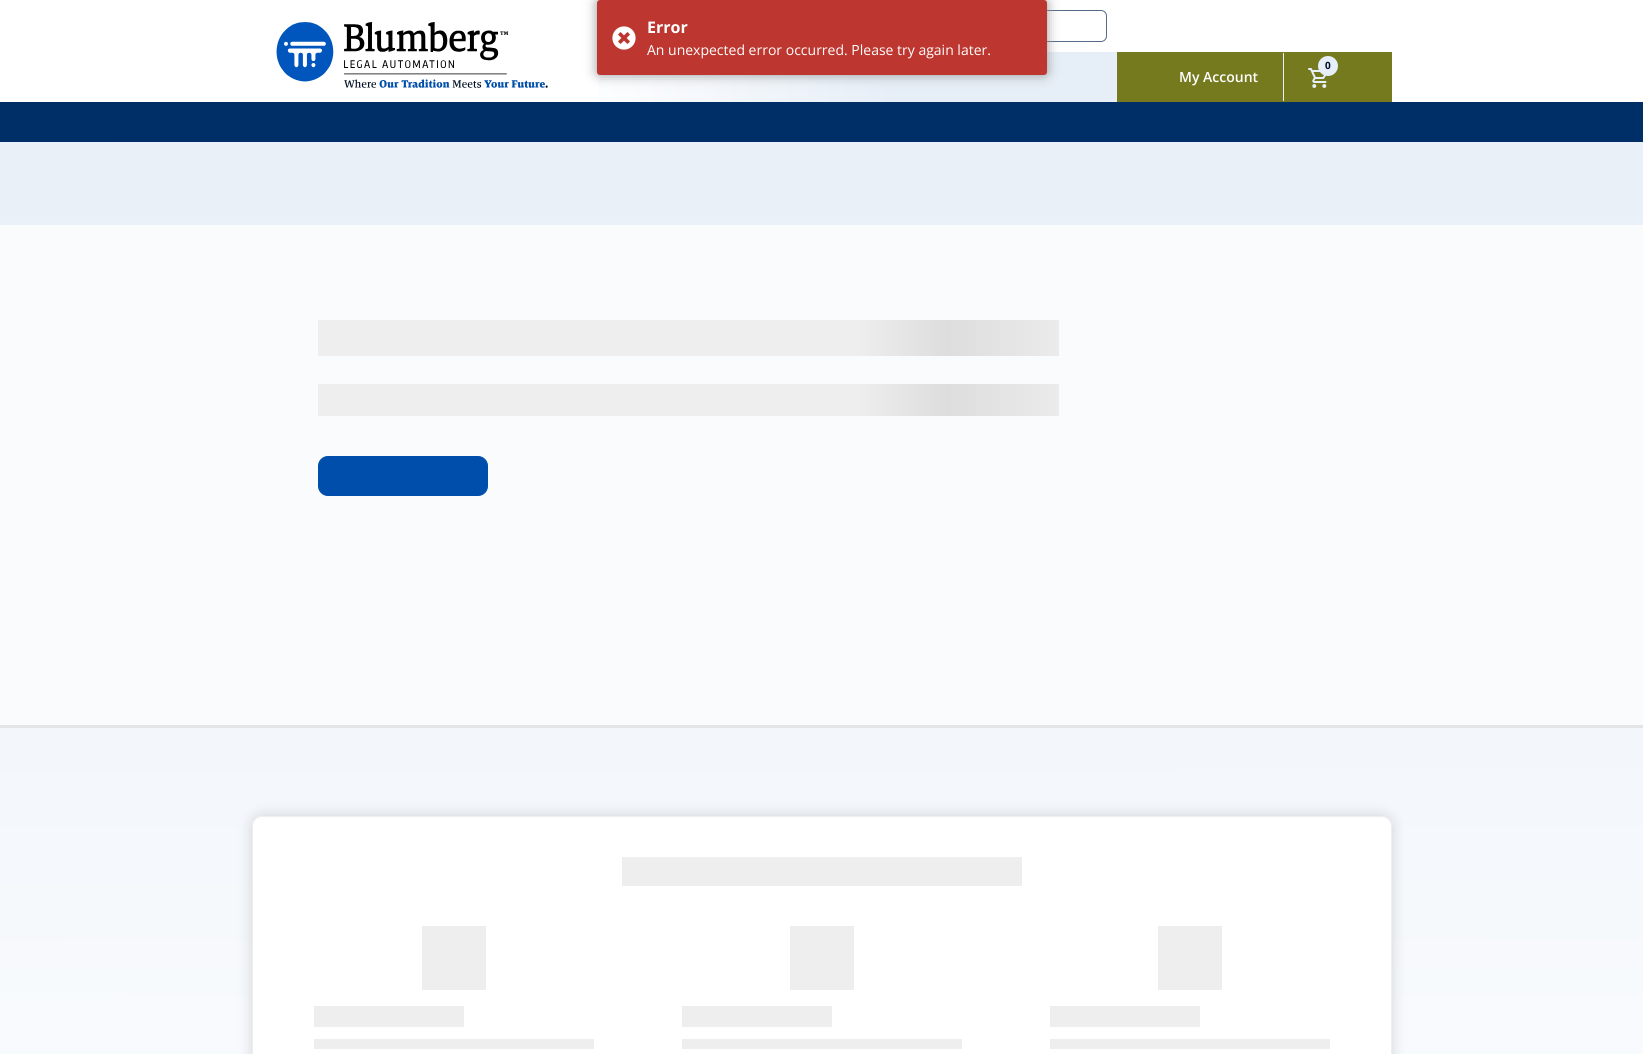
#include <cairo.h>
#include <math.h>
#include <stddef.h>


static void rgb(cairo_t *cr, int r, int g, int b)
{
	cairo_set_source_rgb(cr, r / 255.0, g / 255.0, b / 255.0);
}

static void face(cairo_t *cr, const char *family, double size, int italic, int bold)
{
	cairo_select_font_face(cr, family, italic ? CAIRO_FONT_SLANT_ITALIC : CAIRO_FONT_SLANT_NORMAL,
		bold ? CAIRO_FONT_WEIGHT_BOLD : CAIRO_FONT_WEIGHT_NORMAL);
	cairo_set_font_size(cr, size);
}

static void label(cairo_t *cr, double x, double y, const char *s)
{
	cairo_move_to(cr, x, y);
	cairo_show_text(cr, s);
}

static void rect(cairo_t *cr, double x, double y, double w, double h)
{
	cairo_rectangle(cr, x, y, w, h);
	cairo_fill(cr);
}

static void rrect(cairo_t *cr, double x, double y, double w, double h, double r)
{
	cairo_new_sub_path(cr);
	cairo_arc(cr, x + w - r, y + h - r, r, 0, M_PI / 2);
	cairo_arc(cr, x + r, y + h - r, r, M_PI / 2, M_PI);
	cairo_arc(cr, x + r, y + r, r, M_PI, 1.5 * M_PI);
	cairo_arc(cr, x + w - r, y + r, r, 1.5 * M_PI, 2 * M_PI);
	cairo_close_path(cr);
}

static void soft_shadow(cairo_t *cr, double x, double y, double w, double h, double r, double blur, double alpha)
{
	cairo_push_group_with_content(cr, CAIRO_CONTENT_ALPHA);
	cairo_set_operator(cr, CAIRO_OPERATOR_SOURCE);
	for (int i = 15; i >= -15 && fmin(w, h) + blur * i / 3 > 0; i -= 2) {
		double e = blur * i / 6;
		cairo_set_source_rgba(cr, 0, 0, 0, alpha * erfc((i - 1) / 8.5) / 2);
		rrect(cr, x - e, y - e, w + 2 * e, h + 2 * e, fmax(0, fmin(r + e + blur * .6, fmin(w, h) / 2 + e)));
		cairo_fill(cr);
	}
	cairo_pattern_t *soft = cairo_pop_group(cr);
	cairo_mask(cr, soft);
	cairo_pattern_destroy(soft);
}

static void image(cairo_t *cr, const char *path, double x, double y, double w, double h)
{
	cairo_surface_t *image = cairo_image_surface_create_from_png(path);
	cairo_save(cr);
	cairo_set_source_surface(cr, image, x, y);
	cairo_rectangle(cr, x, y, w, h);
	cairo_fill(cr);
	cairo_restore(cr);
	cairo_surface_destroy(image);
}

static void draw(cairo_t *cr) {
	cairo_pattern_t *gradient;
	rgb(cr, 255, 255, 255);
	cairo_paint(cr);
	gradient = cairo_pattern_create_linear(821, 0, 822, 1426);
	cairo_pattern_add_color_stop_rgba(gradient, 0, 0.902, 0.933, 0.969, 1);
	cairo_pattern_add_color_stop_rgba(gradient, 1, 1, 1, 1, 1);
	cairo_set_source(cr, gradient);
	cairo_pattern_destroy(gradient);
	rect(cr, 0, 142, 1643, 912);
	rrect(cr, 607.5, 10.5, 499, 31, 5.5);
	rgb(cr, 84, 108, 137);
	cairo_set_line_width(cr, 1);
	cairo_stroke(cr);
	gradient = cairo_pattern_create_linear(566, 77, 1392, 77);
	cairo_pattern_add_color_stop_rgba(gradient, 0, 1, 1, 1, 1);
	cairo_pattern_add_color_stop_rgba(gradient, 0.4, 0.902, 0.933, 0.969, 1);
	cairo_set_source(cr, gradient);
	cairo_pattern_destroy(gradient);
	rect(cr, 599, 52, 518, 50);
	rgb(cr, 153, 153, 153);
	soft_shadow(cr, 597, 0, 450, 75, 3, 6, 1);
	rgb(cr, 189, 54, 47);
	rrect(cr, 597, 0, 450, 75, 3);
	cairo_fill(cr);
	image(cr, "image0.png", 612, 26, 24, 24);
	face(cr, "Open Sans", 16, 0, 1);
	rgb(cr, 255, 255, 255);
	label(cr, 647, 33, "Error");
	face(cr, "Open Sans", 14, 0, 0);
	label(cr, 647, 55, "An unexpected error occurred. Please try again later.");
	image(cr, "image1.png", 276, 22, 272, 66);
	rgb(cr, 118, 122, 31);
	rect(cr, 1117, 52, 275, 50);
	image(cr, "image2.png", 1308, 68, 19, 20);
	rgb(cr, 230, 238, 247);
	cairo_arc(cr, 1328, 66, 10, 0, 2 * M_PI);
	cairo_fill(cr);
	face(cr, "Open Sans", 10, 0, 1);
	rgb(cr, 0, 16, 36);
	label(cr, 1325, 69, "0");
	face(cr, "Open Sans SemiBold", 14, 0, 0);
	rgb(cr, 255, 255, 255);
	label(cr, 1179, 82, "My Account");
	rgb(cr, 230, 238, 247);
	rect(cr, 1283, 53, 1, 48);
	rgb(cr, 0, 47, 103);
	rect(cr, 0, 102, 1643, 40);
	rgb(cr, 228, 228, 228);
	rect(cr, 0, 725, 1643, 3);
	rgb(cr, 250, 251, 252);
	rect(cr, 0, 225, 1643, 500);
	gradient = cairo_pattern_create_linear(-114, 372, 786, 372);
	cairo_pattern_add_color_stop_rgba(gradient, 0.08, 0.933, 0.933, 0.933, 1);
	cairo_pattern_add_color_stop_rgba(gradient, 0.18, 0.867, 0.867, 0.867, 1);
	cairo_pattern_add_color_stop_rgba(gradient, 0.33, 0.933, 0.933, 0.933, 1);
	cairo_set_source(cr, gradient);
	cairo_pattern_destroy(gradient);
	rect(cr, 318, 320, 468, 36);
	gradient = cairo_pattern_create_linear(786, 372, 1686, 372);
	cairo_pattern_add_color_stop_rgba(gradient, 0.08, 0.933, 0.933, 0.933, 1);
	cairo_pattern_add_color_stop_rgba(gradient, 0.18, 0.867, 0.867, 0.867, 1);
	cairo_pattern_add_color_stop_rgba(gradient, 0.33, 0.933, 0.933, 0.933, 1);
	cairo_set_source(cr, gradient);
	cairo_pattern_destroy(gradient);
	rect(cr, 786, 320, 273, 36);
	gradient = cairo_pattern_create_linear(-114, 436, 786, 436);
	cairo_pattern_add_color_stop_rgba(gradient, 0.08, 0.933, 0.933, 0.933, 1);
	cairo_pattern_add_color_stop_rgba(gradient, 0.18, 0.867, 0.867, 0.867, 1);
	cairo_pattern_add_color_stop_rgba(gradient, 0.33, 0.933, 0.933, 0.933, 1);
	cairo_set_source(cr, gradient);
	cairo_pattern_destroy(gradient);
	rect(cr, 318, 384, 468, 32);
	gradient = cairo_pattern_create_linear(786, 436, 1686, 436);
	cairo_pattern_add_color_stop_rgba(gradient, 0.08, 0.933, 0.933, 0.933, 1);
	cairo_pattern_add_color_stop_rgba(gradient, 0.18, 0.867, 0.867, 0.867, 1);
	cairo_pattern_add_color_stop_rgba(gradient, 0.33, 0.933, 0.933, 0.933, 1);
	cairo_set_source(cr, gradient);
	cairo_pattern_destroy(gradient);
	rect(cr, 786, 384, 273, 32);
	rgb(cr, 0, 78, 171);
	rrect(cr, 318.5, 456.5, 169, 39, 9.5);
	cairo_fill_preserve(cr);
	cairo_stroke(cr);
	rgb(cr, 0, 0, 0);
	soft_shadow(cr, 252, 816, 1140, 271, 10, 7.5, 0.15);
	rgb(cr, 255, 255, 255);
	rrect(cr, 252.5, 816.5, 1139, 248, 9.5);
	cairo_fill_preserve(cr);
	rgb(cr, 238, 238, 238);
	cairo_stroke(cr);
	gradient = cairo_pattern_create_linear(190, 909, 1090, 909);
	cairo_pattern_add_color_stop_rgba(gradient, 0.08, 0.933, 0.933, 0.933, 1);
	cairo_pattern_add_color_stop_rgba(gradient, 0.18, 0.867, 0.867, 0.867, 1);
	cairo_pattern_add_color_stop_rgba(gradient, 0.33, 0.933, 0.933, 0.933, 1);
	cairo_set_source(cr, gradient);
	cairo_pattern_destroy(gradient);
	rect(cr, 622, 857, 400, 29);
	gradient = cairo_pattern_create_linear(-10, 978, 890, 978);
	cairo_pattern_add_color_stop_rgba(gradient, 0.08, 0.933, 0.933, 0.933, 1);
	cairo_pattern_add_color_stop_rgba(gradient, 0.18, 0.867, 0.867, 0.867, 1);
	cairo_pattern_add_color_stop_rgba(gradient, 0.33, 0.933, 0.933, 0.933, 1);
	cairo_set_source(cr, gradient);
	cairo_pattern_destroy(gradient);
	rect(cr, 422, 926, 64, 64);
	gradient = cairo_pattern_create_linear(-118, 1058, 782, 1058);
	cairo_pattern_add_color_stop_rgba(gradient, 0.08, 0.933, 0.933, 0.933, 1);
	cairo_pattern_add_color_stop_rgba(gradient, 0.18, 0.867, 0.867, 0.867, 1);
	cairo_pattern_add_color_stop_rgba(gradient, 0.33, 0.933, 0.933, 0.933, 1);
	cairo_set_source(cr, gradient);
	cairo_pattern_destroy(gradient);
	rect(cr, 314, 1006, 150, 21);
	gradient = cairo_pattern_create_linear(-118, 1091, 782, 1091);
	cairo_pattern_add_color_stop_rgba(gradient, 0.08, 0.933, 0.933, 0.933, 1);
	cairo_pattern_add_color_stop_rgba(gradient, 0.18, 0.867, 0.867, 0.867, 1);
	cairo_pattern_add_color_stop_rgba(gradient, 0.33, 0.933, 0.933, 0.933, 1);
	cairo_set_source(cr, gradient);
	cairo_pattern_destroy(gradient);
	rect(cr, 314, 1039, 280, 10);
	gradient = cairo_pattern_create_linear(358, 978, 1258, 978);
	cairo_pattern_add_color_stop_rgba(gradient, 0.08, 0.933, 0.933, 0.933, 1);
	cairo_pattern_add_color_stop_rgba(gradient, 0.18, 0.867, 0.867, 0.867, 1);
	cairo_pattern_add_color_stop_rgba(gradient, 0.33, 0.933, 0.933, 0.933, 1);
	cairo_set_source(cr, gradient);
	cairo_pattern_destroy(gradient);
	rect(cr, 790, 926, 64, 64);
	gradient = cairo_pattern_create_linear(250, 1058, 1150, 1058);
	cairo_pattern_add_color_stop_rgba(gradient, 0.08, 0.933, 0.933, 0.933, 1);
	cairo_pattern_add_color_stop_rgba(gradient, 0.18, 0.867, 0.867, 0.867, 1);
	cairo_pattern_add_color_stop_rgba(gradient, 0.33, 0.933, 0.933, 0.933, 1);
	cairo_set_source(cr, gradient);
	cairo_pattern_destroy(gradient);
	rect(cr, 682, 1006, 150, 21);
	gradient = cairo_pattern_create_linear(250, 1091, 1150, 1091);
	cairo_pattern_add_color_stop_rgba(gradient, 0.08, 0.933, 0.933, 0.933, 1);
	cairo_pattern_add_color_stop_rgba(gradient, 0.18, 0.867, 0.867, 0.867, 1);
	cairo_pattern_add_color_stop_rgba(gradient, 0.33, 0.933, 0.933, 0.933, 1);
	cairo_set_source(cr, gradient);
	cairo_pattern_destroy(gradient);
	rect(cr, 682, 1039, 280, 10);
	gradient = cairo_pattern_create_linear(726, 978, 1626, 978);
	cairo_pattern_add_color_stop_rgba(gradient, 0.08, 0.933, 0.933, 0.933, 1);
	cairo_pattern_add_color_stop_rgba(gradient, 0.18, 0.867, 0.867, 0.867, 1);
	cairo_pattern_add_color_stop_rgba(gradient, 0.33, 0.933, 0.933, 0.933, 1);
	cairo_set_source(cr, gradient);
	cairo_pattern_destroy(gradient);
	rect(cr, 1158, 926, 64, 64);
	gradient = cairo_pattern_create_linear(618, 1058, 1518, 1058);
	cairo_pattern_add_color_stop_rgba(gradient, 0.08, 0.933, 0.933, 0.933, 1);
	cairo_pattern_add_color_stop_rgba(gradient, 0.18, 0.867, 0.867, 0.867, 1);
	cairo_pattern_add_color_stop_rgba(gradient, 0.33, 0.933, 0.933, 0.933, 1);
	cairo_set_source(cr, gradient);
	cairo_pattern_destroy(gradient);
	rect(cr, 1050, 1006, 150, 21);
	gradient = cairo_pattern_create_linear(618, 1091, 1518, 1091);
	cairo_pattern_add_color_stop_rgba(gradient, 0.08, 0.933, 0.933, 0.933, 1);
	cairo_pattern_add_color_stop_rgba(gradient, 0.18, 0.867, 0.867, 0.867, 1);
	cairo_pattern_add_color_stop_rgba(gradient, 0.33, 0.933, 0.933, 0.933, 1);
	cairo_set_source(cr, gradient);
	cairo_pattern_destroy(gradient);
	rect(cr, 1050, 1039, 280, 10);
}

int main(void) {
	cairo_surface_t *surface = cairo_image_surface_create(CAIRO_FORMAT_RGB24, 1643, 1054);
	cairo_t *cr = cairo_create(surface);
	cairo_font_options_t *options = cairo_font_options_create();
	cairo_font_options_set_hint_metrics(options, CAIRO_HINT_METRICS_OFF);
	cairo_font_options_set_hint_style(options, CAIRO_HINT_STYLE_NONE);
	cairo_set_font_options(cr, options);
	cairo_set_miter_limit(cr, 4);
	draw(cr);
	cairo_surface_write_to_png(surface, "render.png");
	cairo_font_options_destroy(options);
	cairo_destroy(cr);
	cairo_surface_destroy(surface);
	return 0;
}
